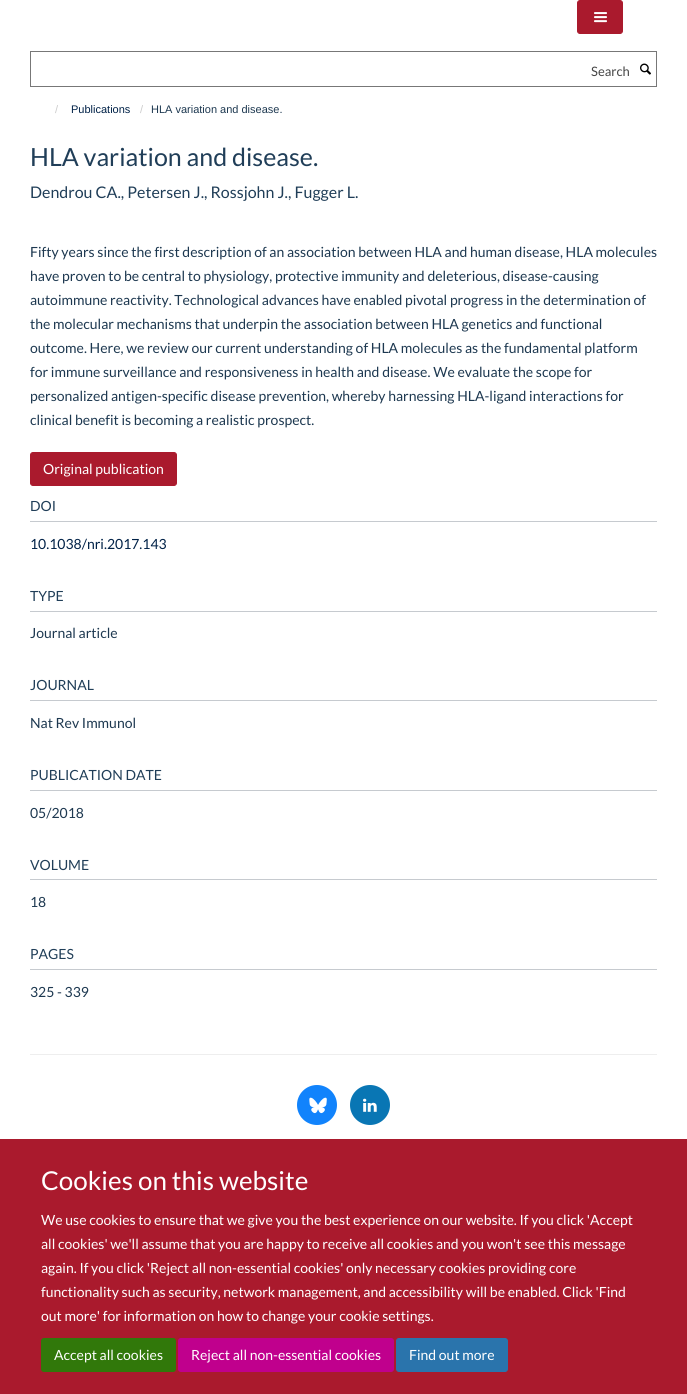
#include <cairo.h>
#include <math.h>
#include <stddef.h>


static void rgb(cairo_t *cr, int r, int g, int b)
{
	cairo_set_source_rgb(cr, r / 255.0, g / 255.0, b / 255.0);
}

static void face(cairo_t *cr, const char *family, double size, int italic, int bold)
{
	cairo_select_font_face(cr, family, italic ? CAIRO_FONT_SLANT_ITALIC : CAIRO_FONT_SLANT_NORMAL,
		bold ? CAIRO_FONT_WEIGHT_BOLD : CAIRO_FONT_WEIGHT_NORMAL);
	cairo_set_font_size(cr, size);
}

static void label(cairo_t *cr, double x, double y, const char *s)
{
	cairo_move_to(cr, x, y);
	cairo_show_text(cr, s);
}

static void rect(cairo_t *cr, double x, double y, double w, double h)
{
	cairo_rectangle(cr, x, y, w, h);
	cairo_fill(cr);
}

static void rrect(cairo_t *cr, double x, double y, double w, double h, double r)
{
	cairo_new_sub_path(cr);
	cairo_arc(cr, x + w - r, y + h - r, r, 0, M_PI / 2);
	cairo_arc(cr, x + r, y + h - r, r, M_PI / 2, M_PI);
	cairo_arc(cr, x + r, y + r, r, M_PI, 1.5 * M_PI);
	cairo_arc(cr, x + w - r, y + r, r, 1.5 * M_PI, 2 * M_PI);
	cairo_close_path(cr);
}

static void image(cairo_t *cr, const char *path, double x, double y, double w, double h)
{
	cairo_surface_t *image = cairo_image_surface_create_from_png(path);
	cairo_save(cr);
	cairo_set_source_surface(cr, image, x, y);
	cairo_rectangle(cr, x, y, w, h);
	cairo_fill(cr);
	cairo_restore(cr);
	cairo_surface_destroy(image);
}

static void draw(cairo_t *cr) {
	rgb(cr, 255, 255, 255);
	cairo_paint(cr);
	rgb(cr, 170, 26, 45);
	rrect(cr, 577.5, 0.5, 45, 33, 2.5);
	cairo_fill_preserve(cr);
	cairo_set_line_width(cr, 1);
	cairo_stroke(cr);
	image(cr, "image0.png", 594, 12, 13, 11);
	cairo_rectangle(cr, 30.5, 51.5, 626, 35);
	rgb(cr, 119, 119, 119);
	cairo_stroke(cr);
	face(cr, "Lato", 13, 0, 0);
	rgb(cr, 68, 68, 68);
	label(cr, 591, 76, "Search");
	image(cr, "image1.png", 640, 63, 11, 12);
	face(cr, "Liberation Sans", 11, 0, 0);
	rgb(cr, 204, 204, 204);
	label(cr, 55, 113, "/");
	rgb(cr, 0, 33, 71);
	label(cr, 71, 113, "Publications");
	rgb(cr, 204, 204, 204);
	label(cr, 140, 113, "/");
	rgb(cr, 29, 56, 80);
	label(cr, 151, 113, "HLA variation and disease.");
	face(cr, "Lato", 25, 0, 0);
	rgb(cr, 32, 62, 88);
	label(cr, 30, 166, "HLA variation and disease.");
	face(cr, "Lato", 16, 0, 0);
	label(cr, 30, 198, "Dendrou CA., Petersen J., Rossjohn J., Fugger L.");
	face(cr, "Lato", 14, 0, 0);
	rgb(cr, 29, 56, 80);
	label(cr, 30, 257, "Fifty years since the first description of an association between HLA and human disease, HLA molecules");
	label(cr, 30, 281, "have proven to be central to physiology, protective immunity and deleterious, disease-causing");
	label(cr, 30, 305, "autoimmune reactivity. Technological advances have enabled pivotal progress in the determination of");
	label(cr, 30, 329, "the molecular mechanisms that underpin the association between HLA genetics and functional");
	label(cr, 30, 353, "outcome. Here, we review our current understanding of HLA molecules as the fundamental platform");
	label(cr, 30, 377, "for immune surveillance and responsiveness in health and disease. We evaluate the scope for");
	label(cr, 30, 401, "personalized antigen-specific disease prevention, whereby harnessing HLA-ligand interactions for");
	label(cr, 30, 425, "clinical benefit is becoming a realistic prospect.");
	rgb(cr, 170, 26, 45);
	rrect(cr, 30.5, 452.5, 146, 33, 2.5);
	cairo_fill_preserve(cr);
	cairo_stroke(cr);
	rgb(cr, 255, 255, 255);
	label(cr, 43, 474, "Original publication");
	rgb(cr, 198, 202, 207);
	rect(cr, 30, 521, 627, 1);
	rgb(cr, 32, 62, 88);
	label(cr, 30, 511, "DOI");
	rgb(cr, 0, 33, 71);
	label(cr, 30, 549, "10.1038/nri.2017.143");
	rgb(cr, 198, 202, 207);
	rect(cr, 30, 611, 627, 1);
	rgb(cr, 32, 62, 88);
	label(cr, 30, 601, "TYPE");
	rgb(cr, 29, 56, 80);
	label(cr, 30, 638, "Journal article");
	rgb(cr, 198, 202, 207);
	rect(cr, 30, 700, 627, 1);
	rgb(cr, 32, 62, 88);
	label(cr, 30, 690, "JOURNAL");
	rgb(cr, 29, 56, 80);
	label(cr, 30, 728, "Nat Rev Immunol");
	rgb(cr, 198, 202, 207);
	rect(cr, 30, 790, 627, 1);
	rgb(cr, 32, 62, 88);
	label(cr, 30, 780, "PUBLICATION DATE");
	rgb(cr, 29, 56, 80);
	label(cr, 30, 818, "05/2018");
	rgb(cr, 198, 202, 207);
	rect(cr, 30, 879, 627, 1);
	rgb(cr, 32, 62, 88);
	label(cr, 30, 870, "VOLUME");
	rgb(cr, 29, 56, 80);
	label(cr, 30, 907, "18");
	rgb(cr, 198, 202, 207);
	rect(cr, 30, 969, 627, 1);
	rgb(cr, 32, 62, 88);
	label(cr, 30, 959, "PAGES");
	rgb(cr, 29, 56, 80);
	label(cr, 30, 997, "325 - 339");
	rgb(cr, 238, 238, 238);
	rect(cr, 30, 1054, 627, 1);
	rgb(cr, 17, 131, 252);
	cairo_new_path(cr);
	cairo_arc(cr, 317, 1105, 20, 0, 2 * M_PI);
	cairo_fill(cr);
	image(cr, "image2.png", 309, 1097, 18, 17);
	rgb(cr, 9, 118, 180);
	cairo_arc(cr, 370, 1105, 20, 0, 2 * M_PI);
	cairo_fill(cr);
	image(cr, "image3.png", 363, 1098, 14, 14);
	rgb(cr, 170, 26, 45);
	rect(cr, 0, 1139, 687, 255);
	face(cr, "Lato", 26, 0, 0);
	rgb(cr, 255, 255, 255);
	label(cr, 41, 1190, "Cookies on this website");
	face(cr, "Lato", 14, 0, 0);
	label(cr, 41, 1225, "We use cookies to ensure that we give you the best experience on our website. If you click 'Accept");
	label(cr, 41, 1249, "all cookies' we'll assume that you are happy to receive all cookies and you won't see this message");
	label(cr, 41, 1273, "again. If you click 'Reject all non-essential cookies' only necessary cookies providing core");
	label(cr, 41, 1297, "functionality such as security, network management, and accessibility will be enabled. Click 'Find");
	label(cr, 41, 1321, "out more' for information on how to change your cookie settings.");
	rgb(cr, 49, 120, 10);
	rrect(cr, 41.5, 1338.5, 134, 33, 2.5);
	cairo_fill_preserve(cr);
	cairo_stroke(cr);
	rgb(cr, 255, 255, 255);
	label(cr, 54, 1360, "Accept all cookies");
	rgb(cr, 192, 0, 141);
	rrect(cr, 178.5, 1338.5, 215, 33, 2.5);
	cairo_fill_preserve(cr);
	cairo_stroke(cr);
	rgb(cr, 255, 255, 255);
	label(cr, 191, 1360, "Reject all non-essential cookies");
	rgb(cr, 42, 116, 172);
	rrect(cr, 396.5, 1338.5, 111, 33, 2.5);
	cairo_fill_preserve(cr);
	cairo_stroke(cr);
	rgb(cr, 255, 255, 255);
	label(cr, 409, 1360, "Find out more");
}

int main(void) {
	cairo_surface_t *surface = cairo_image_surface_create(CAIRO_FORMAT_RGB24, 687, 1394);
	cairo_t *cr = cairo_create(surface);
	cairo_font_options_t *options = cairo_font_options_create();
	cairo_font_options_set_hint_metrics(options, CAIRO_HINT_METRICS_OFF);
	cairo_font_options_set_hint_style(options, CAIRO_HINT_STYLE_NONE);
	cairo_set_font_options(cr, options);
	cairo_set_miter_limit(cr, 4);
	draw(cr);
	cairo_surface_write_to_png(surface, "render.png");
	cairo_font_options_destroy(options);
	cairo_destroy(cr);
	cairo_surface_destroy(surface);
	return 0;
}
